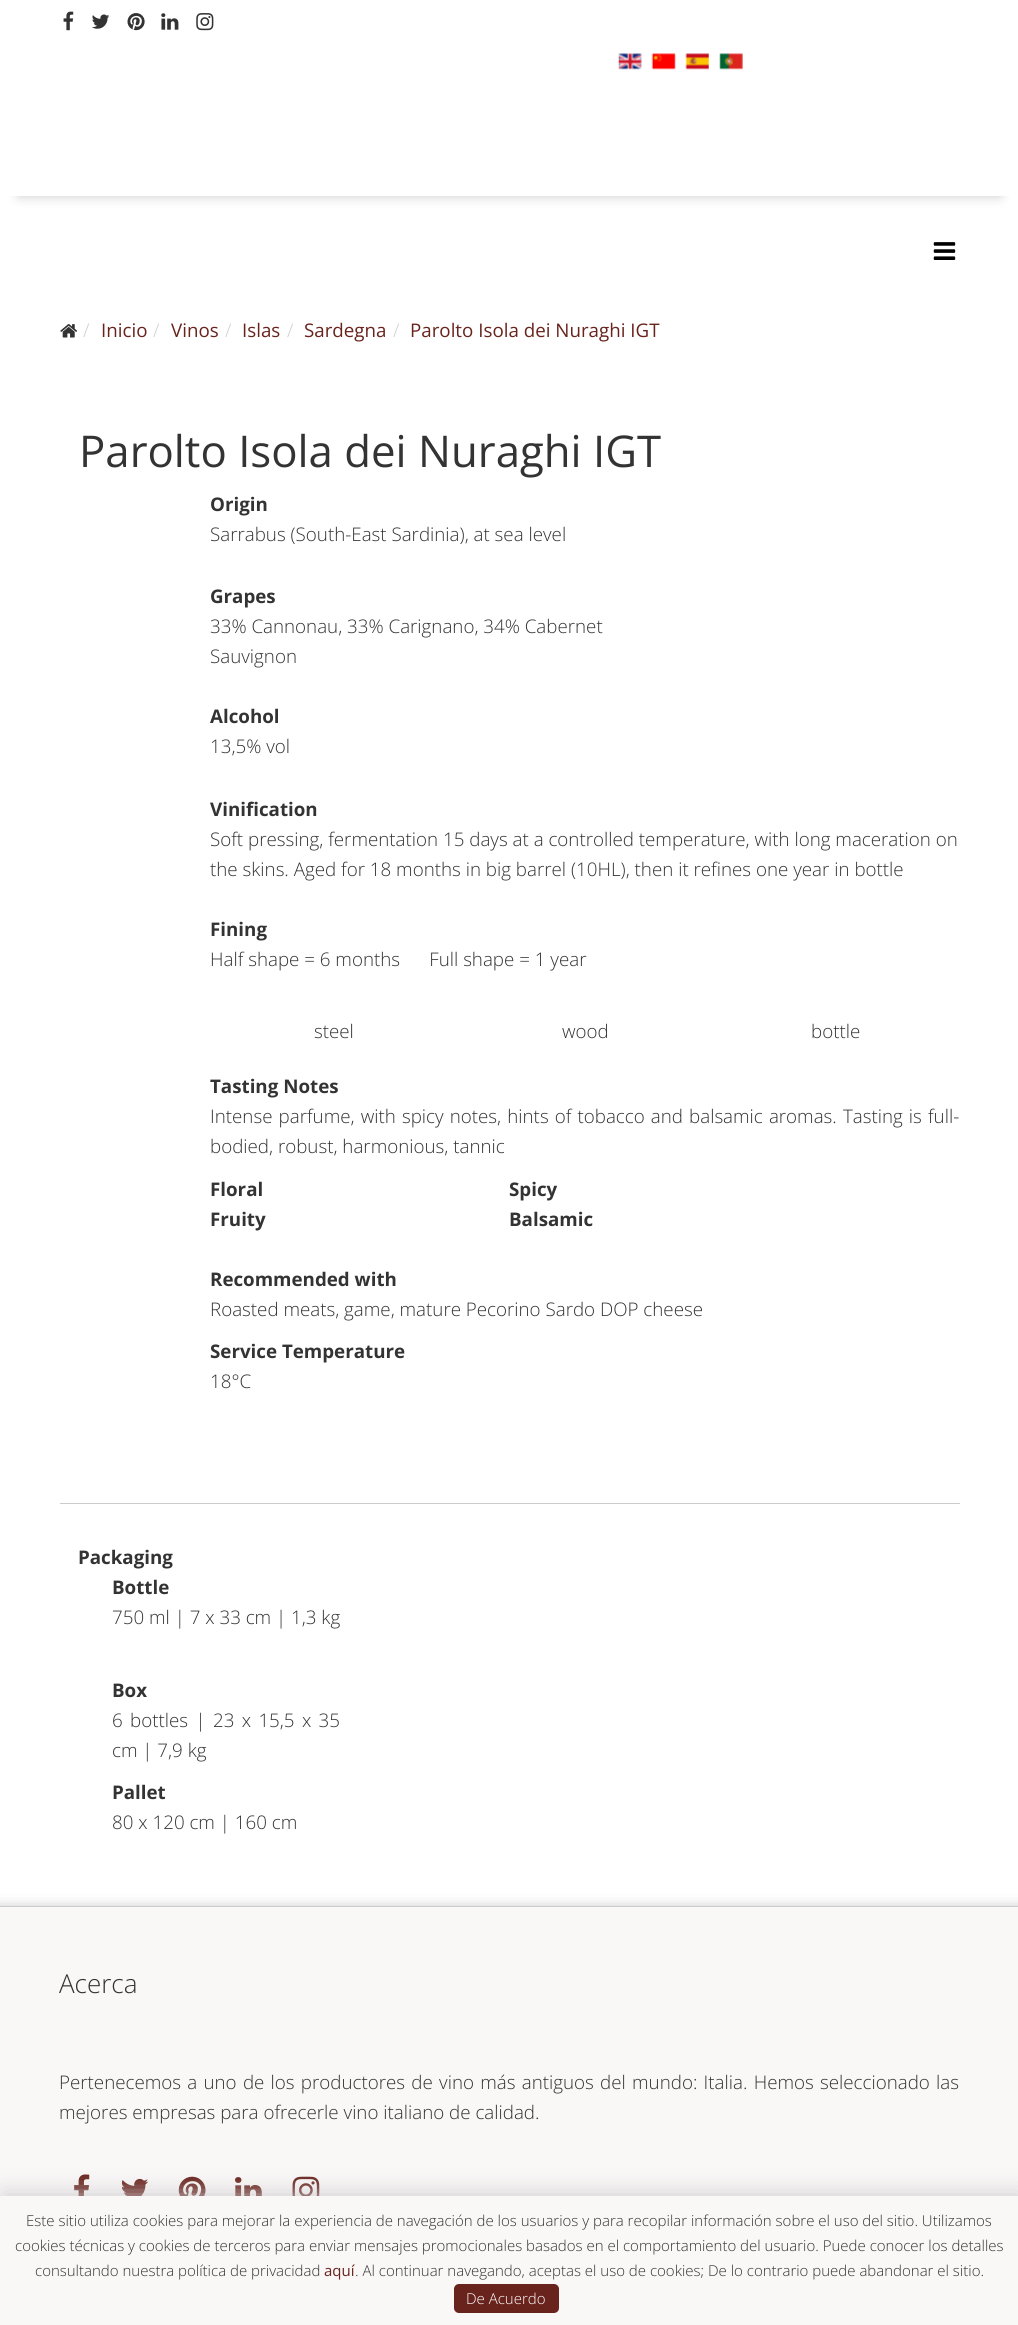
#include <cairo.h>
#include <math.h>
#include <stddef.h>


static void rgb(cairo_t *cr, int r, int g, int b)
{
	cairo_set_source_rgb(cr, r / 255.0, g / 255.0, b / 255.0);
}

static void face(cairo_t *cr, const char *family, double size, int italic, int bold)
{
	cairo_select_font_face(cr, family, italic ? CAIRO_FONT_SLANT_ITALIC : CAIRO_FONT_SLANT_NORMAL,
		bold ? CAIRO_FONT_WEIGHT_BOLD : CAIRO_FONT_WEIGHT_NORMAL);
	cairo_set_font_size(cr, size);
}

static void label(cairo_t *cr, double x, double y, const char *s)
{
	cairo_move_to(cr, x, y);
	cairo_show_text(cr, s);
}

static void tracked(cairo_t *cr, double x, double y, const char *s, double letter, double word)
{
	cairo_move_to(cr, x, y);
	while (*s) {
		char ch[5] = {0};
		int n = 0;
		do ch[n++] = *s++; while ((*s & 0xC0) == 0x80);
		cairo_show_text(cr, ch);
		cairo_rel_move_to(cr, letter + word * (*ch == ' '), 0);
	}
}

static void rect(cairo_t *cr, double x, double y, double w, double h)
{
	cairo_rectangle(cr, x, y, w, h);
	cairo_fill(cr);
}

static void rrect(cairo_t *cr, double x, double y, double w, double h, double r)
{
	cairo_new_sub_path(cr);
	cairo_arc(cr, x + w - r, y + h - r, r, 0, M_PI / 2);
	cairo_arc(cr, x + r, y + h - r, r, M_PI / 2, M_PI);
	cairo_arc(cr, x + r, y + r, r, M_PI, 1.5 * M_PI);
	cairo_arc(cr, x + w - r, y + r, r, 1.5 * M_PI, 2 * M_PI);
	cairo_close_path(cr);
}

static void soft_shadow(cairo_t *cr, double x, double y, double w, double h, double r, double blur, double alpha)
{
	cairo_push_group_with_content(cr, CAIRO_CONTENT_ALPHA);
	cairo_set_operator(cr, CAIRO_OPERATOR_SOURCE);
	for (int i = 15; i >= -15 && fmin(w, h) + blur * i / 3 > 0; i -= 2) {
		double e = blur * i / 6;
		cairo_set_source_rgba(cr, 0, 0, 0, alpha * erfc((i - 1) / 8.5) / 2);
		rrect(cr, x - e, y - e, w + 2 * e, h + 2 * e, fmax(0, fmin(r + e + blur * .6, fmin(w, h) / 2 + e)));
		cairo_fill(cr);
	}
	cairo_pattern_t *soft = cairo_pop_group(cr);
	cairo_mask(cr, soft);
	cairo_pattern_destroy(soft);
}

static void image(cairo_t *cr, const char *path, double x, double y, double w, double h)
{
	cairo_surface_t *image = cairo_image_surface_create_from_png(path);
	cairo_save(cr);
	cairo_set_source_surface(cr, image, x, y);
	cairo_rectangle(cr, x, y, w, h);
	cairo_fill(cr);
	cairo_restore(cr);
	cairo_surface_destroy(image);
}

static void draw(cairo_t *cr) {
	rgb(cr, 255, 255, 255);
	cairo_paint(cr);
	image(cr, "image0.png", 63, 11, 11, 20);
	image(cr, "image1.png", 92, 14, 18, 15);
	image(cr, "image2.png", 127, 13, 18, 18);
	image(cr, "image3.png", 161, 13, 18, 17);
	image(cr, "image4.png", 196, 13, 18, 18);
	image(cr, "image5.png", 618, 53, 24, 17);
	image(cr, "image6.png", 651, 53, 25, 17);
	image(cr, "image7.png", 685, 53, 24, 17);
	image(cr, "image8.png", 719, 53, 24, 17);
	cairo_save(cr);
	cairo_rectangle(cr, 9, 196, 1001, 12);
	cairo_clip(cr);
	rgb(cr, 204, 204, 204);
	soft_shadow(cr, 19, 121, 981, 75, 0, 6, 1);
	cairo_restore(cr);
	image(cr, "image9.png", 933, 242, 23, 18);
	image(cr, "image10.png", 60, 324, 18, 14);
	face(cr, "Open Sans Light", 18.75, 0, 0);
	rgb(cr, 204, 204, 204);
	label(cr, 83, 337, "/");
	face(cr, "Open Sans", 18.75, 0, 0);
	rgb(cr, 105, 35, 29);
	label(cr, 101, 337, "Inicio");
	face(cr, "Open Sans Light", 18.75, 0, 0);
	rgb(cr, 204, 204, 204);
	label(cr, 153, 337, "/");
	face(cr, "Open Sans", 18.75, 0, 0);
	rgb(cr, 105, 35, 29);
	label(cr, 171, 337, "Vinos");
	face(cr, "Open Sans Light", 18.75, 0, 0);
	rgb(cr, 204, 204, 204);
	label(cr, 225, 337, "/");
	face(cr, "Open Sans", 18.75, 0, 0);
	rgb(cr, 105, 35, 29);
	label(cr, 242, 337, "Islas");
	face(cr, "Open Sans Light", 18.75, 0, 0);
	rgb(cr, 204, 204, 204);
	label(cr, 287, 337, "/");
	face(cr, "Open Sans", 18.75, 0, 0);
	rgb(cr, 105, 35, 29);
	label(cr, 304, 337, "Sardegna");
	face(cr, "Open Sans Light", 18.75, 0, 0);
	rgb(cr, 204, 204, 204);
	label(cr, 393, 337, "/");
	face(cr, "Open Sans", 18.75, 0, 0);
	rgb(cr, 105, 35, 29);
	label(cr, 410, 337, "Parolto Isola dei Nuraghi IGT");
	face(cr, "Open Sans", 43.75, 0, 0);
	rgb(cr, 51, 51, 51);
	label(cr, 79, 467, "Parolto Isola dei Nuraghi IGT");
	face(cr, "Open Sans", 18.75, 0, 1);
	label(cr, 210, 511, "Origin");
	face(cr, "Open Sans Light", 18.75, 0, 0);
	label(cr, 210, 541, "Sarrabus (South-East Sardinia), at sea level");
	face(cr, "Open Sans", 18.75, 0, 1);
	label(cr, 210, 603, "Grapes");
	face(cr, "Open Sans Light", 18.75, 0, 0);
	label(cr, 210, 633, "33% Cannonau, 33% Carignano, 34% Cabernet");
	label(cr, 210, 663, "Sauvignon");
	face(cr, "Open Sans", 18.75, 0, 1);
	label(cr, 210, 723, "Alcohol");
	face(cr, "Open Sans Light", 18.75, 0, 0);
	label(cr, 210, 753, "13,5% vol");
	face(cr, "Open Sans", 18.75, 0, 1);
	label(cr, 210, 816, "Vinification");
	face(cr, "Open Sans Light", 18.75, 0, 0);
	label(cr, 210, 846, "Soft pressing, fermentation 15 days at a controlled temperature, with long maceration on");
	label(cr, 210, 876, "the skins. Aged for 18 months in big barrel (10HL), then it refines one year in bottle");
	face(cr, "Open Sans", 18.75, 0, 1);
	label(cr, 210, 936, "Fining");
	face(cr, "Open Sans Light", 18.75, 0, 0);
	label(cr, 210, 966, "Half shape = 6 months      Full shape = 1 year");
	label(cr, 314, 1038, "steel");
	label(cr, 562, 1038, "wood");
	label(cr, 811, 1038, "bottle");
	face(cr, "Open Sans", 18.75, 0, 1);
	label(cr, 210, 1093, "Tasting Notes");
	face(cr, "Open Sans Light", 18.75, 0, 0);
	tracked(cr, 210, 1123, "Intense parfume, with spicy notes, hints of tobacco and balsamic aromas. Tasting is full-", 0, 1.25);
	label(cr, 210, 1153, "bodied, robust, harmonious, tannic");
	face(cr, "Open Sans", 18.75, 0, 1);
	label(cr, 210, 1196, "Floral");
	label(cr, 509, 1196, "Spicy");
	label(cr, 210, 1226, "Fruity");
	label(cr, 509, 1226, "Balsamic");
	label(cr, 210, 1286, "Recommended with");
	face(cr, "Open Sans Light", 18.75, 0, 0);
	label(cr, 210, 1316, "Roasted meats, game, mature Pecorino Sardo DOP cheese");
	face(cr, "Open Sans", 18.75, 0, 1);
	label(cr, 210, 1358, "Service Temperature");
	face(cr, "Open Sans Light", 18.75, 0, 0);
	label(cr, 210, 1388, "18°C");
	rgb(cr, 204, 204, 204);
	rect(cr, 60, 1503, 900, 1);
	face(cr, "Open Sans", 18.75, 0, 1);
	rgb(cr, 51, 51, 51);
	label(cr, 78, 1564, "Packaging");
	label(cr, 112, 1594, "Bottle");
	face(cr, "Open Sans Light", 18.75, 0, 0);
	label(cr, 112, 1624, "750 ml | 7 x 33 cm | 1,3 kg");
	face(cr, "Open Sans", 18.75, 0, 1);
	label(cr, 112, 1697, "Box");
	face(cr, "Open Sans Light", 18.75, 0, 0);
	tracked(cr, 112, 1727, "6 bottles | 23 x 15,5 x 35", 0, 2.5);
	label(cr, 112, 1757, "cm | 7,9 kg");
	face(cr, "Open Sans", 18.75, 0, 1);
	label(cr, 112, 1799, "Pallet");
	face(cr, "Open Sans Light", 18.75, 0, 0);
	label(cr, 112, 1829, "80 x 120 cm | 160 cm");
	rgb(cr, 204, 204, 204);
	soft_shadow(cr, -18, 1906, 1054, 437, 0, 6, 1);
	rgb(cr, 250, 247, 247);
	rect(cr, 0, 1907, 1018, 289);
	rgb(cr, 204, 204, 204);
	rect(cr, 0, 1906, 1018, 1);
	face(cr, "Open Sans Light", 26, 0, 0);
	rgb(cr, 51, 51, 51);
	label(cr, 59, 1993, "Acerca");
	face(cr, "Open Sans Light", 18.75, 0, 0);
	tracked(cr, 59, 2089, "Pertenecemos a uno de los productores de vino más antiguos del mundo: Italia. Hemos seleccionado las", 0, 1.4);
	label(cr, 59, 2119, "mejores empresas para ofrecerle vino italiano de calidad.");
	image(cr, "image11.png", 74, 2174, 16, 22);
	image(cr, "image12.png", 121, 2178, 28, 18);
	image(cr, "image13.png", 178, 2176, 28, 20);
	image(cr, "image14.png", 235, 2177, 27, 19);
	image(cr, "image15.png", 292, 2176, 28, 20);
	rgb(cr, 204, 204, 204);
	soft_shadow(cr, 4, 2195, 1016, 126, 0, 12.5, 1);
	rgb(cr, 250, 247, 247);
	rect(cr, 0, 2196, 1018, 129);
	face(cr, "Open Sans Light", 15, 0, 0);
	rgb(cr, 51, 51, 51);
	label(cr, 26, 2226, "Este sitio utiliza cookies para mejorar la experiencia de navegación de los usuarios y para recopilar información sobre el uso del sitio. Utilizamos");
	label(cr, 15, 2251, "cookies técnicas y cookies de terceros para enviar mensajes promocionales basados en el comportamiento del usuario. Puede conocer los detalles");
	label(cr, 35, 2276, "consultando nuestra política de privacidad");
	face(cr, "Open Sans", 15, 0, 0);
	rgb(cr, 105, 35, 29);
	label(cr, 324, 2276, "aquí");
	face(cr, "Open Sans Light", 15, 0, 0);
	rgb(cr, 51, 51, 51);
	label(cr, 355, 2276, ". Al continuar navegando, aceptas el uso de cookies; De lo contrario puede abandonar el sitio.");
	rgb(cr, 105, 35, 29);
	rrect(cr, 454, 2284, 105, 29, 5);
	cairo_fill(cr);
	rgb(cr, 255, 255, 255);
	label(cr, 466, 2304, "De Acuerdo");
}

int main(void) {
	cairo_surface_t *surface = cairo_image_surface_create(CAIRO_FORMAT_RGB24, 1018, 2325);
	cairo_t *cr = cairo_create(surface);
	cairo_font_options_t *options = cairo_font_options_create();
	cairo_font_options_set_hint_metrics(options, CAIRO_HINT_METRICS_OFF);
	cairo_font_options_set_hint_style(options, CAIRO_HINT_STYLE_NONE);
	cairo_set_font_options(cr, options);
	cairo_set_miter_limit(cr, 4);
	draw(cr);
	cairo_surface_write_to_png(surface, "render.png");
	cairo_font_options_destroy(options);
	cairo_destroy(cr);
	cairo_surface_destroy(surface);
	return 0;
}
